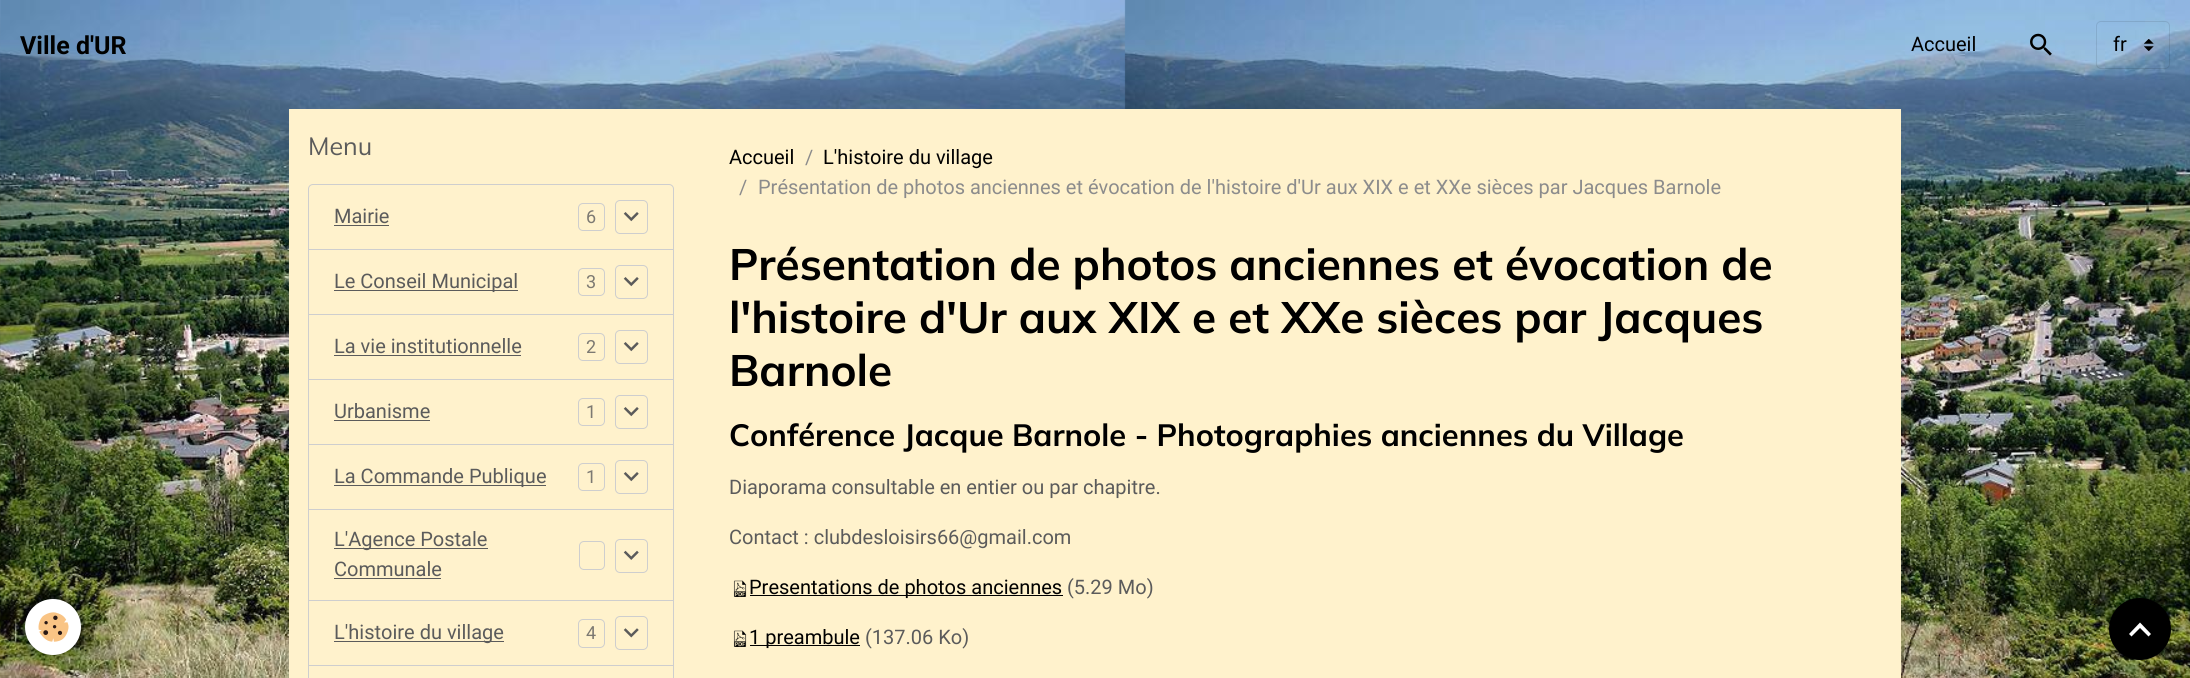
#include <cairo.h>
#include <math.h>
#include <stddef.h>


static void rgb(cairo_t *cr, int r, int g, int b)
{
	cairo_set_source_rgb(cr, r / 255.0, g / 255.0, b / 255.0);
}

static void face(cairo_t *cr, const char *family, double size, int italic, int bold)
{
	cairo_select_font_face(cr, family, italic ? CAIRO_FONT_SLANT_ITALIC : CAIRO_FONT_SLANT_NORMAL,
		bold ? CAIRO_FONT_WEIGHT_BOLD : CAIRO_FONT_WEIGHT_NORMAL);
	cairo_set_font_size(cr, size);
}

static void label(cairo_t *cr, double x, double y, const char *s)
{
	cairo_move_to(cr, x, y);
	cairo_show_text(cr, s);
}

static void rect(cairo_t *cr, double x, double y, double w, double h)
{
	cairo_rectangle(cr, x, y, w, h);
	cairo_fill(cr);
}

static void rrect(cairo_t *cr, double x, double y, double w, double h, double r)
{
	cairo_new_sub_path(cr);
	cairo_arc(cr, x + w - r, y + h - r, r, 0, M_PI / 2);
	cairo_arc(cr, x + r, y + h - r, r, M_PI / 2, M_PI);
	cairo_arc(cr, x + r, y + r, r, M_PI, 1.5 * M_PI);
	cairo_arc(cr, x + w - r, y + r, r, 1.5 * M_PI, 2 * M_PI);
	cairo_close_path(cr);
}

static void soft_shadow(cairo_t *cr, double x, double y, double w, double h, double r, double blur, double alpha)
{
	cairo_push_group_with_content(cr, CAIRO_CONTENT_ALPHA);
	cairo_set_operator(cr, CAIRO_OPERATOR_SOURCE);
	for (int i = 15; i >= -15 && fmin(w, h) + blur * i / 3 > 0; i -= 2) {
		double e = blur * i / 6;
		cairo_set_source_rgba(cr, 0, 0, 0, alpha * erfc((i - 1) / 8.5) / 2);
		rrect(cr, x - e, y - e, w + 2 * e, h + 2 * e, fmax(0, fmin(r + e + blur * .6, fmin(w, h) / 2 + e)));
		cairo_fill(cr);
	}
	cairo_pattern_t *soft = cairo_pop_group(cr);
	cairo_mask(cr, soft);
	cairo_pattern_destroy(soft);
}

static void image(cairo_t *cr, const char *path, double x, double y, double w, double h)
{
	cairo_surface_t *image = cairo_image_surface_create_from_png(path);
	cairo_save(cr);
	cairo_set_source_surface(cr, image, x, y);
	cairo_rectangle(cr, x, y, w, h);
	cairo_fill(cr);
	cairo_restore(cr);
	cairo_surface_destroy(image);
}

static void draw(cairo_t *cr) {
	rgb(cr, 255, 255, 255);
	cairo_paint(cr);
	image(cr, "image0.png", 0, 0, 2190, 678);
	face(cr, "Roboto", 25, 0, 1);
	rgb(cr, 0, 0, 0);
	label(cr, 20, 54, "Ville d'UR");
	face(cr, "Roboto", 20, 0, 0);
	label(cr, 1911, 51, "Accueil");
	image(cr, "image1.png", 2030, 33, 22, 23);
	image(cr, "image2.png", 2144, 39, 10, 12);
	rrect(cr, 2096.5, 21.5, 73, 47, 4.5);
	cairo_set_source_rgba(cr, 0, 0, 0, 0.1);
	cairo_set_line_width(cr, 1);
	cairo_stroke(cr);
	rgb(cr, 0, 0, 0);
	label(cr, 2113, 51, "fr");
	rgb(cr, 0, 0, 0);
	soft_shadow(cr, 25, 603, 56, 56, 28, 6, 0.24);
	rgb(cr, 255, 255, 255);
	cairo_arc(cr, 53, 627, 28, 0, 2 * M_PI);
	cairo_fill(cr);
	image(cr, "image3.png", 38, 612, 31, 30);
	rgb(cr, 255, 242, 204);
	rect(cr, 289, 109, 1612, 569);
	face(cr, "Mulish", 25, 0, 0);
	rgb(cr, 91, 91, 91);
	label(cr, 308, 155, "Menu");
	cairo_new_path(cr);
	cairo_move_to(cr, 313, 184.5);
	cairo_line_to(cr, 669, 184.5);
	cairo_curve_to(cr, 671.5, 184.5, 673.5, 186.5, 673.5, 189);
	cairo_line_to(cr, 673.5, 249.5);
	cairo_line_to(cr, 308.5, 249.5);
	cairo_line_to(cr, 308.5, 189);
	cairo_curve_to(cr, 308.5, 186.5, 310.5, 184.5, 313, 184.5);
	cairo_close_path(cr);
	rgb(cr, 206, 206, 206);
	cairo_stroke(cr);
	face(cr, "Roboto", 20, 0, 0);
	rgb(cr, 91, 91, 91);
	label(cr, 334, 223, "Mairie");
	rect(cr, 334, 225, 55, 1);
	rrect(cr, 578.5, 203.5, 26, 27, 4.5);
	rgb(cr, 206, 206, 206);
	cairo_stroke(cr);
	face(cr, "Roboto", 18, 0, 0);
	rgb(cr, 124, 121, 114);
	label(cr, 586, 223, "6");
	rrect(cr, 615.5, 200.5, 32, 33, 4.5);
	rgb(cr, 206, 206, 206);
	cairo_stroke(cr);
	image(cr, "image4.png", 623, 212, 16, 10);
	cairo_rectangle(cr, 308.5, 249.5, 365, 65);
	cairo_stroke(cr);
	rgb(cr, 91, 91, 91);
	rect(cr, 334, 290, 184, 1);
	face(cr, "Roboto", 20, 0, 0);
	label(cr, 334, 288, "Le Conseil Municipal");
	rrect(cr, 578.5, 268.5, 26, 27, 4.5);
	rgb(cr, 206, 206, 206);
	cairo_stroke(cr);
	face(cr, "Roboto", 18, 0, 0);
	rgb(cr, 124, 121, 114);
	label(cr, 586, 288, "3");
	rrect(cr, 615.5, 265.5, 32, 33, 4.5);
	rgb(cr, 206, 206, 206);
	cairo_stroke(cr);
	image(cr, "image4.png", 623, 277, 16, 10);
	cairo_rectangle(cr, 308.5, 314.5, 365, 65);
	cairo_stroke(cr);
	face(cr, "Roboto", 20, 0, 0);
	rgb(cr, 91, 91, 91);
	label(cr, 334, 353, "La vie institutionnelle");
	rect(cr, 334, 355, 187, 1);
	rrect(cr, 578.5, 333.5, 26, 27, 4.5);
	rgb(cr, 206, 206, 206);
	cairo_stroke(cr);
	face(cr, "Roboto", 18, 0, 0);
	rgb(cr, 124, 121, 114);
	label(cr, 586, 353, "2");
	rrect(cr, 615.5, 330.5, 32, 33, 4.5);
	rgb(cr, 206, 206, 206);
	cairo_stroke(cr);
	image(cr, "image4.png", 623, 342, 16, 10);
	cairo_rectangle(cr, 308.5, 379.5, 365, 65);
	cairo_stroke(cr);
	face(cr, "Roboto", 20, 0, 0);
	rgb(cr, 91, 91, 91);
	label(cr, 334, 418, "Urbanisme");
	rect(cr, 334, 420, 96, 1);
	rrect(cr, 578.5, 398.5, 26, 27, 4.5);
	rgb(cr, 206, 206, 206);
	cairo_stroke(cr);
	face(cr, "Roboto", 18, 0, 0);
	rgb(cr, 124, 121, 114);
	label(cr, 586, 418, "1");
	rrect(cr, 615.5, 395.5, 32, 33, 4.5);
	rgb(cr, 206, 206, 206);
	cairo_stroke(cr);
	image(cr, "image4.png", 623, 407, 16, 10);
	cairo_rectangle(cr, 308.5, 444.5, 365, 65);
	cairo_stroke(cr);
	rgb(cr, 91, 91, 91);
	rect(cr, 334, 485, 212, 1);
	face(cr, "Roboto", 20, 0, 0);
	label(cr, 334, 483, "La Commande Publique");
	rrect(cr, 578.5, 463.5, 26, 27, 4.5);
	rgb(cr, 206, 206, 206);
	cairo_stroke(cr);
	face(cr, "Roboto", 18, 0, 0);
	rgb(cr, 124, 121, 114);
	label(cr, 586, 483, "1");
	rrect(cr, 615.5, 460.5, 32, 33, 4.5);
	rgb(cr, 206, 206, 206);
	cairo_stroke(cr);
	image(cr, "image4.png", 623, 472, 16, 10);
	cairo_rectangle(cr, 308.5, 509.5, 365, 91);
	cairo_stroke(cr);
	rgb(cr, 91, 91, 91);
	rect(cr, 334, 548, 154, 1);
	face(cr, "Roboto", 20, 0, 0);
	label(cr, 334, 546, "L'Agence Postale");
	label(cr, 334, 576, "Communale");
	rect(cr, 334, 578, 107, 1);
	rrect(cr, 579.5, 541.5, 25, 28, 4.5);
	rgb(cr, 206, 206, 206);
	cairo_stroke(cr);
	rrect(cr, 615.5, 539.5, 32, 33, 4.5);
	cairo_stroke(cr);
	image(cr, "image5.png", 623, 550, 16, 10);
	cairo_rectangle(cr, 308.5, 600.5, 365, 65);
	cairo_stroke(cr);
	rgb(cr, 91, 91, 91);
	rect(cr, 334, 641, 170, 1);
	label(cr, 334, 639, "L'histoire du village");
	rrect(cr, 578.5, 619.5, 26, 28, 4.5);
	rgb(cr, 206, 206, 206);
	cairo_stroke(cr);
	face(cr, "Roboto", 18, 0, 0);
	rgb(cr, 124, 121, 114);
	label(cr, 586, 639, "4");
	rrect(cr, 615.5, 616.5, 32, 33, 4.5);
	rgb(cr, 206, 206, 206);
	cairo_stroke(cr);
	image(cr, "image6.png", 623, 628, 16, 10);
	cairo_rectangle(cr, 308.5, 665.5, 365, 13);
	cairo_stroke(cr);
	face(cr, "Roboto", 20, 0, 0);
	rgb(cr, 0, 0, 0);
	label(cr, 729, 164, "Accueil");
	rgb(cr, 140, 140, 140);
	label(cr, 805, 164, "/");
	rgb(cr, 0, 0, 0);
	label(cr, 823, 164, "L'histoire du village");
	rgb(cr, 140, 140, 140);
	label(cr, 739, 194, "/");
	label(cr, 758, 194, "Présentation de photos anciennes et évocation de l'histoire d'Ur aux XIX e et XXe sièces par Jacques Barnole");
	face(cr, "Mulish", 44, 0, 1);
	rgb(cr, 0, 0, 0);
	label(cr, 729, 280, "Présentation de photos anciennes et évocation de");
	label(cr, 729, 333, "l'histoire d'Ur aux XIX e et XXe sièces par Jacques");
	label(cr, 729, 386, "Barnole");
	face(cr, "Mulish", 30.8, 0, 1);
	label(cr, 729, 446, "Conférence Jacque Barnole - Photographies anciennes du Village");
	face(cr, "Roboto", 20, 0, 0);
	rgb(cr, 91, 91, 91);
	label(cr, 729, 494, "Diaporama consultable en entier ou par chapitre.");
	label(cr, 729, 544, "Contact : clubdesloisirs66@gmail.com");
	image(cr, "image7.png", 733, 580, 14, 17);
	rgb(cr, 0, 0, 0);
	rect(cr, 750, 595, 313, 1);
	label(cr, 749, 594, "Presentations de photos anciennes");
	rgb(cr, 91, 91, 91);
	label(cr, 1067, 594, "(5.29 Mo)");
	image(cr, "image8.png", 733, 630, 14, 17);
	rgb(cr, 0, 0, 0);
	rect(cr, 750, 645, 110, 1);
	label(cr, 749, 644, "1 preambule");
	rgb(cr, 91, 91, 91);
	label(cr, 865, 644, "(137.06 Ko)");
	rgb(cr, 0, 0, 0);
	cairo_new_path(cr);
	cairo_arc(cr, 2140, 629, 31, 0, 2 * M_PI);
	cairo_fill(cr);
	rgb(cr, 255, 255, 255);
	cairo_new_path(cr);
	cairo_move_to(cr, 2140, 622.5);
	cairo_line_to(cr, 2151, 634);
	cairo_line_to(cr, 2148.5, 636.5);
	cairo_line_to(cr, 2140, 628);
	cairo_line_to(cr, 2131.5, 636.5);
	cairo_line_to(cr, 2129, 634);
	cairo_close_path(cr);
	cairo_fill(cr);
}

int main(void) {
	cairo_surface_t *surface = cairo_image_surface_create(CAIRO_FORMAT_RGB24, 2190, 678);
	cairo_t *cr = cairo_create(surface);
	cairo_font_options_t *options = cairo_font_options_create();
	cairo_font_options_set_hint_metrics(options, CAIRO_HINT_METRICS_OFF);
	cairo_font_options_set_hint_style(options, CAIRO_HINT_STYLE_NONE);
	cairo_set_font_options(cr, options);
	cairo_set_miter_limit(cr, 4);
	draw(cr);
	cairo_surface_write_to_png(surface, "render.png");
	cairo_font_options_destroy(options);
	cairo_destroy(cr);
	cairo_surface_destroy(surface);
	return 0;
}
